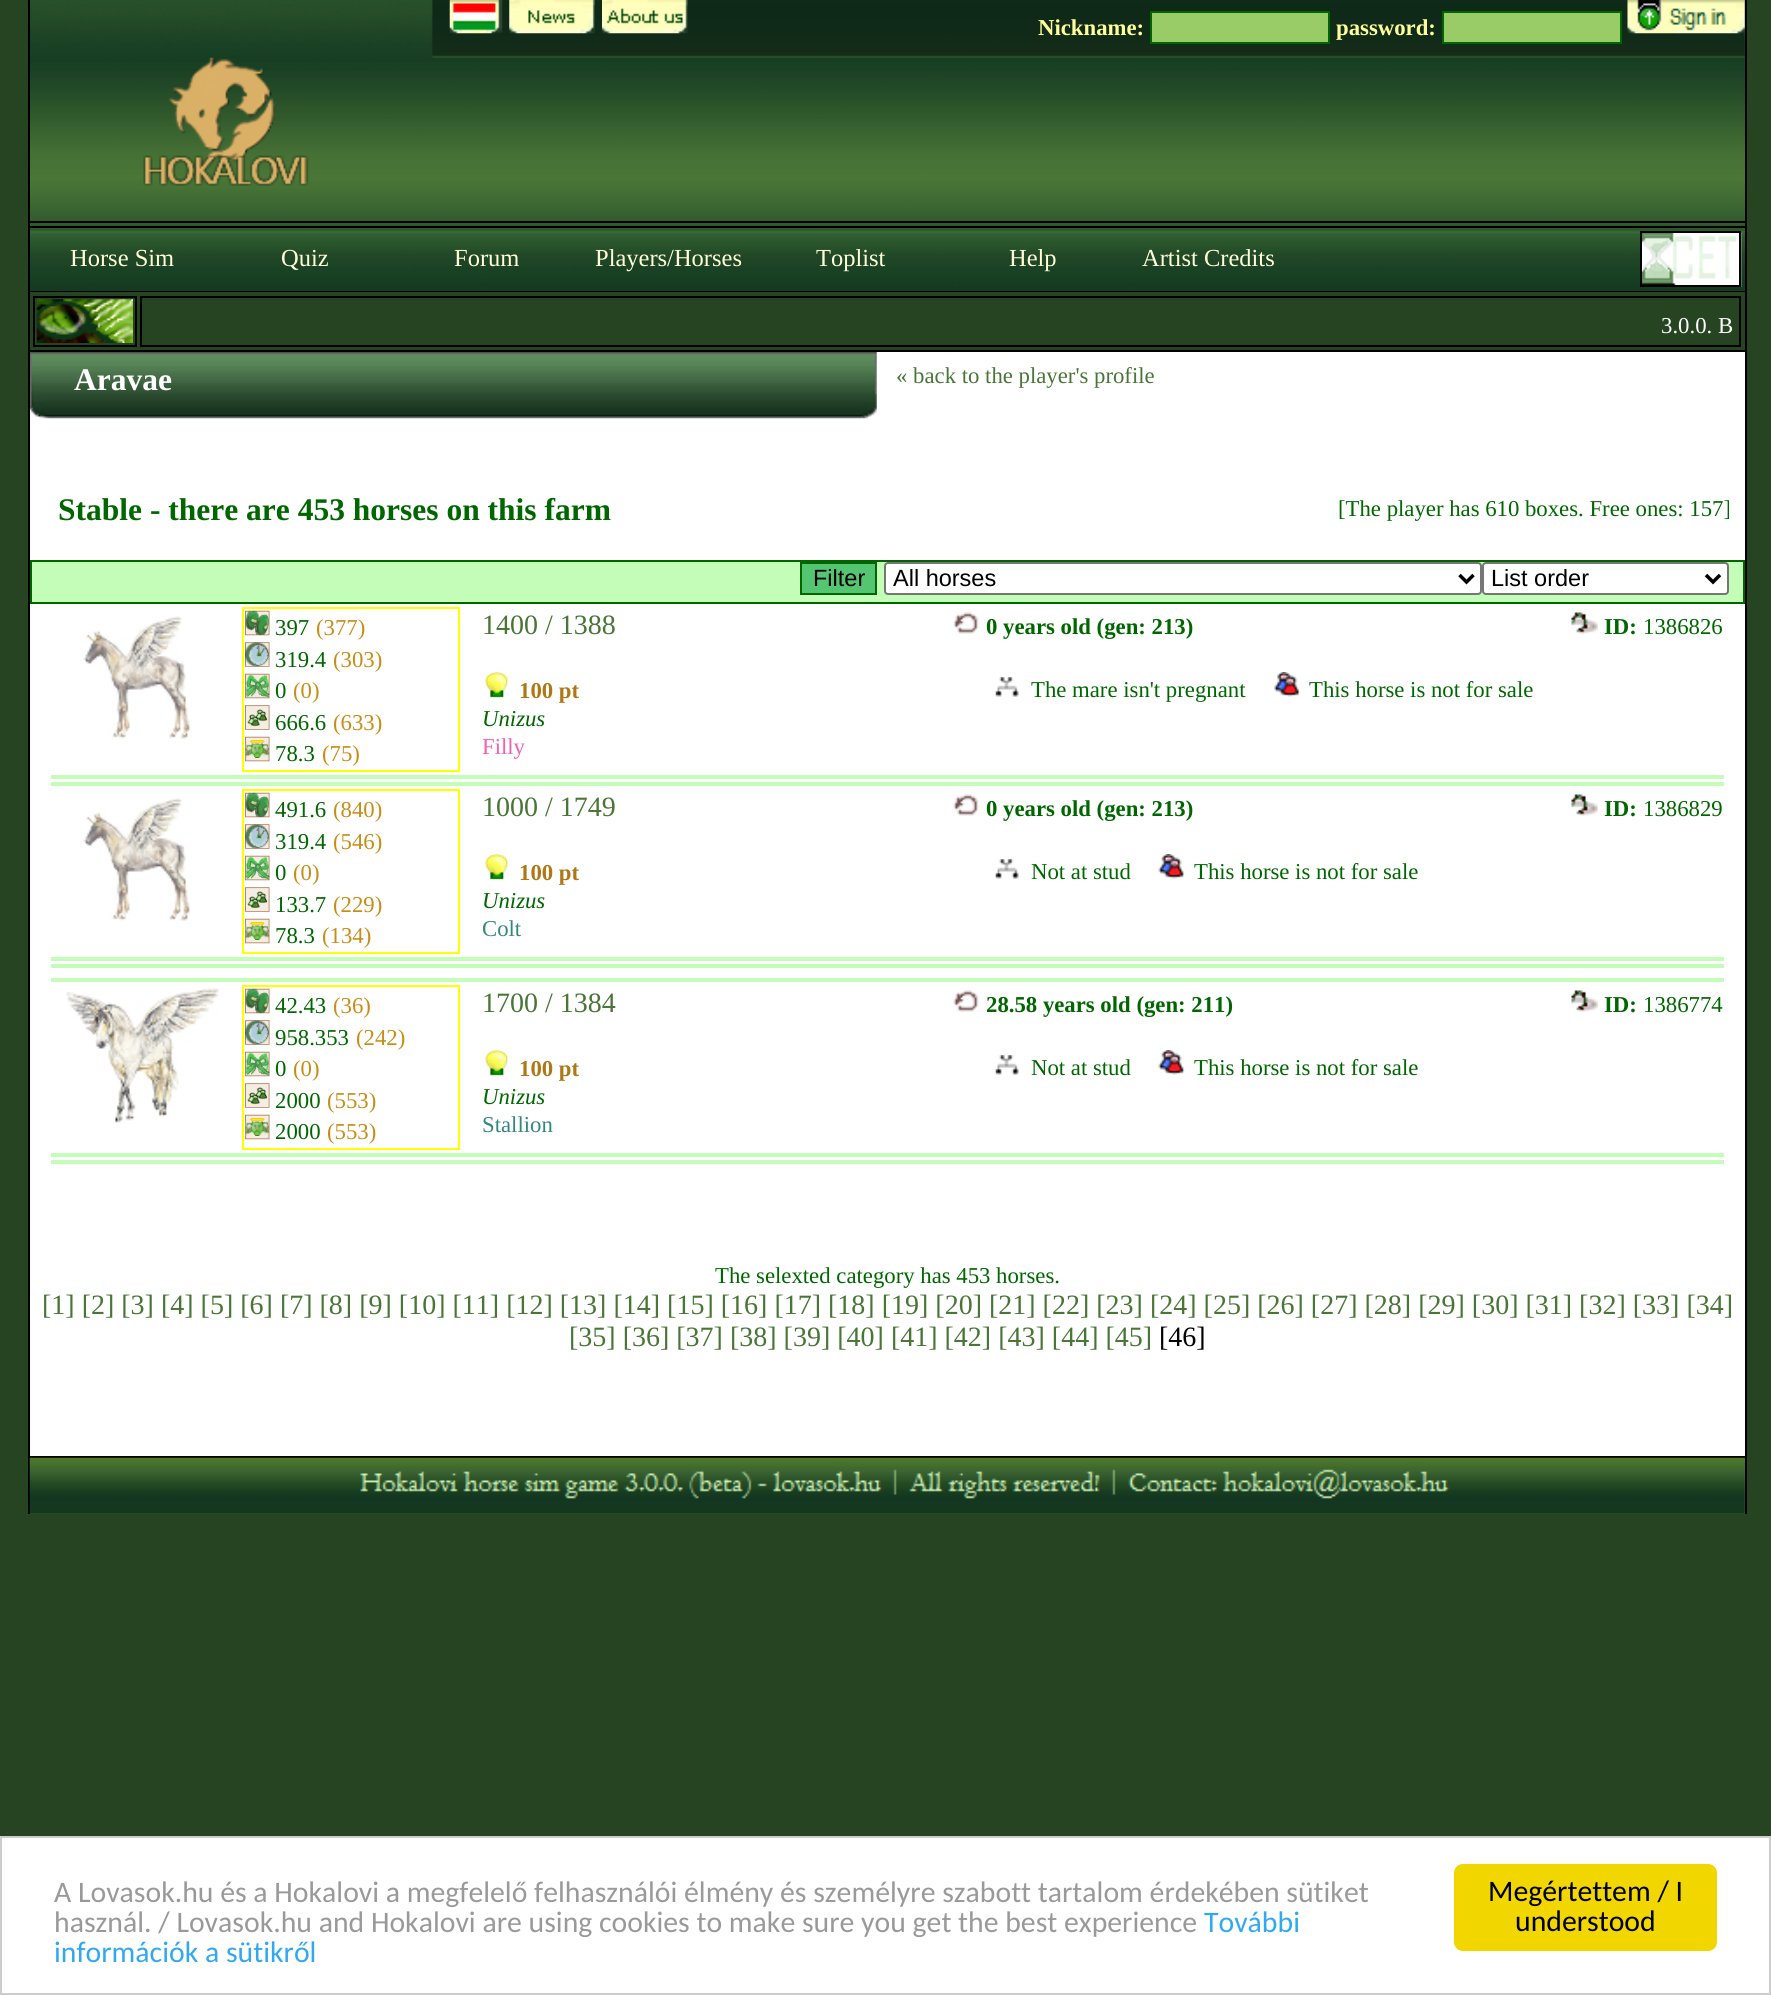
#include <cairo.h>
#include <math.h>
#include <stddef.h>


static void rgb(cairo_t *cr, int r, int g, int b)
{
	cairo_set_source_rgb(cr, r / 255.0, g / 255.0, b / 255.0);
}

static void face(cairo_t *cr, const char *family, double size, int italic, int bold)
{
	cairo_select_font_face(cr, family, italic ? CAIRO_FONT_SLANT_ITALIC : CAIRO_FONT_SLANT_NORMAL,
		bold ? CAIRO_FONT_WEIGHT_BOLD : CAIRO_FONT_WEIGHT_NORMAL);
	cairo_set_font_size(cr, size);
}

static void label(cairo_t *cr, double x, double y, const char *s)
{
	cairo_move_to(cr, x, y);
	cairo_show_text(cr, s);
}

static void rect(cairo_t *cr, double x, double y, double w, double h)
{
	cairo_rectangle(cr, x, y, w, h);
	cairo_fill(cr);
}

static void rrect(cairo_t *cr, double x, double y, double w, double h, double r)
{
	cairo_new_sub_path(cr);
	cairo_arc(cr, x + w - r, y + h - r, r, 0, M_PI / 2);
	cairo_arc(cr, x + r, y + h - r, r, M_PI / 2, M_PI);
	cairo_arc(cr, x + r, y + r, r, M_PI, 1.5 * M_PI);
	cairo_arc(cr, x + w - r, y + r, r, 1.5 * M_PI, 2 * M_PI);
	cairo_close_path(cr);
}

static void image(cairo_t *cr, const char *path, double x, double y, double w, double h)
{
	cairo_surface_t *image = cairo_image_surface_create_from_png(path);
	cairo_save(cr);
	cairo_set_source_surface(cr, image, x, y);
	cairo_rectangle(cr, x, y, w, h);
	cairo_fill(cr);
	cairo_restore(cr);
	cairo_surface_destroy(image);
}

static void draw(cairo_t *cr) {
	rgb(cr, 39, 68, 34);
	cairo_paint(cr);
	image(cr, "image0.png", 30, 0, 1715, 291);
	rgb(cr, 0, 0, 0);
	rect(cr, 1745, 0, 2, 1456);
	rect(cr, 28, 291, 1719, 1);
	rect(cr, 28, 0, 2, 292);
	image(cr, "image1.png", 449, 0, 54, 34);
	image(cr, "image2.png", 509, 0, 86, 34);
	image(cr, "image3.png", 602, 0, 86, 34);
	face(cr, "Liberation Serif", 22.75, 0, 1);
	rgb(cr, 255, 255, 153);
	label(cr, 1038, 35, "Nickname:");
	rgb(cr, 153, 204, 102);
	cairo_rectangle(cr, 1151, 12, 178, 31);
	cairo_fill_preserve(cr);
	rgb(cr, 0, 102, 0);
	cairo_stroke(cr);
	rgb(cr, 255, 255, 153);
	label(cr, 1336, 35, "password:");
	rgb(cr, 153, 204, 102);
	cairo_rectangle(cr, 1443, 12, 178, 31);
	cairo_fill_preserve(cr);
	rgb(cr, 0, 102, 0);
	cairo_stroke(cr);
	image(cr, "image4.png", 1627, 0, 118, 34);
	image(cr, "image5.png", 143, 57, 166, 129);
	rgb(cr, 0, 0, 0);
	rect(cr, 30, 221, 1715, 2);
	rect(cr, 30, 226, 1715, 2);
	face(cr, "Liberation Serif", 24.5, 0, 0);
	rgb(cr, 255, 255, 215);
	label(cr, 70, 266, "Horse Sim");
	label(cr, 281, 266, "Quiz");
	label(cr, 454, 266, "Forum");
	label(cr, 595, 266, "Players/Horses");
	label(cr, 816, 266, "Toplist");
	label(cr, 1009, 266, "Help");
	label(cr, 1142, 266, "Artist Credits");
	image(cr, "image6.png", 1642, 232, 100, 55);
	cairo_rectangle(cr, 1641, 232, 99, 54);
	rgb(cr, 0, 0, 0);
	cairo_stroke(cr);
	rect(cr, 28, 350, 1719, 2);
	rect(cr, 28, 292, 2, 1164);
	cairo_rectangle(cr, 34, 297, 102, 49);
	cairo_stroke(cr);
	image(cr, "image7.png", 36, 299, 97, 44);
	cairo_rectangle(cr, 141, 297, 1599, 49);
	cairo_stroke(cr);
	face(cr, "Liberation Serif", 22.75, 0, 0);
	rgb(cr, 255, 255, 255);
	label(cr, 1661, 333, "3.0.0. B");
	rect(cr, 30, 352, 1715, 1104);
	image(cr, "image8.png", 30, 352, 847, 67);
	face(cr, "Liberation Serif", 31.5, 0, 1);
	label(cr, 74, 390, "Aravae");
	face(cr, "Liberation Serif", 22.75, 0, 0);
	rgb(cr, 73, 117, 54);
	label(cr, 896, 383, "« back to the player's profile");
	face(cr, "Liberation Serif", 31.5, 0, 1);
	rgb(cr, 0, 102, 0);
	label(cr, 58, 520, "Stable - there are 453 horses on this farm");
	face(cr, "Liberation Serif", 22.75, 0, 0);
	label(cr, 1338, 516, "[The player has 610 boxes. Free ones: 157]");
	rgb(cr, 195, 253, 184);
	cairo_rectangle(cr, 31, 561, 1713, 42);
	cairo_fill_preserve(cr);
	rgb(cr, 0, 102, 0);
	cairo_stroke(cr);
	rgb(cr, 84, 197, 113);
	cairo_rectangle(cr, 801, 563, 75, 31);
	cairo_fill_preserve(cr);
	rgb(cr, 0, 102, 0);
	cairo_stroke(cr);
	face(cr, "Liberation Sans", 23.5, 0, 0);
	rgb(cr, 0, 0, 0);
	label(cr, 813, 586, "Filter");
	rgb(cr, 255, 255, 255);
	rrect(cr, 885, 563, 596, 31, 3);
	cairo_fill_preserve(cr);
	rgb(cr, 118, 118, 118);
	cairo_stroke(cr);
	cairo_new_path(cr);
	cairo_move_to(cr, 1459.5, 575);
	cairo_line_to(cr, 1466.5, 582);
	cairo_line_to(cr, 1473.5, 575);
	rgb(cr, 0, 0, 0);
	cairo_set_line_width(cr, 3.5);
	cairo_stroke(cr);
	label(cr, 893, 586, "All horses");
	rgb(cr, 255, 255, 255);
	rrect(cr, 1483, 563, 245, 31, 3);
	cairo_fill_preserve(cr);
	rgb(cr, 118, 118, 118);
	cairo_set_line_width(cr, 2);
	cairo_stroke(cr);
	cairo_new_path(cr);
	cairo_move_to(cr, 1706, 575);
	cairo_line_to(cr, 1713, 582);
	cairo_line_to(cr, 1720, 575);
	rgb(cr, 0, 0, 0);
	cairo_set_line_width(cr, 3.5);
	cairo_stroke(cr);
	label(cr, 1491, 586, "List order");
	image(cr, "image9.png", 83, 616, 108, 123);
	cairo_rectangle(cr, 243, 608, 216, 163);
	rgb(cr, 255, 255, 0);
	cairo_set_line_width(cr, 2);
	cairo_stroke(cr);
	image(cr, "image10.png", 245, 610, 25, 26);
	face(cr, "Liberation Serif", 22.75, 0, 0);
	rgb(cr, 0, 102, 0);
	label(cr, 275, 635, "397");
	rgb(cr, 198, 142, 23);
	label(cr, 316, 635, "(377)");
	image(cr, "image11.png", 245, 642, 25, 25);
	rgb(cr, 0, 102, 0);
	label(cr, 275, 667, "319.4");
	rgb(cr, 198, 142, 23);
	label(cr, 333, 667, "(303)");
	image(cr, "image12.png", 245, 673, 25, 26);
	rgb(cr, 0, 102, 0);
	label(cr, 275, 698, "0");
	rgb(cr, 198, 142, 23);
	label(cr, 293, 698, "(0)");
	image(cr, "image13.png", 245, 705, 25, 25);
	rgb(cr, 0, 102, 0);
	label(cr, 275, 730, "666.6");
	rgb(cr, 198, 142, 23);
	label(cr, 333, 730, "(633)");
	image(cr, "image14.png", 245, 736, 25, 26);
	rgb(cr, 0, 102, 0);
	label(cr, 275, 761, "78.3");
	rgb(cr, 198, 142, 23);
	label(cr, 322, 761, "(75)");
	face(cr, "Liberation Serif", 28, 0, 0);
	rgb(cr, 73, 117, 54);
	label(cr, 482, 634, "1400 / 1388");
	image(cr, "image15.png", 485, 672, 23, 26);
	face(cr, "Liberation Serif", 22.75, 0, 1);
	rgb(cr, 175, 120, 23);
	label(cr, 519, 698, "100 pt");
	face(cr, "Liberation Serif", 22.75, 1, 0);
	rgb(cr, 0, 102, 0);
	label(cr, 482, 726, "Unizus");
	face(cr, "Liberation Serif", 22.75, 0, 0);
	rgb(cr, 246, 96, 171);
	label(cr, 482, 754, "Filly");
	image(cr, "image16.png", 953, 612, 26, 22);
	face(cr, "Liberation Serif", 22.75, 0, 1);
	rgb(cr, 0, 102, 0);
	label(cr, 986, 634, "0 years old (gen: 213)");
	image(cr, "image17.png", 1571, 612, 27, 22);
	label(cr, 1604, 634, "ID:");
	face(cr, "Liberation Serif", 22.75, 0, 0);
	label(cr, 1643, 634, "1386826");
	image(cr, "image18.png", 995, 677, 24, 20);
	label(cr, 1031, 697, "The mare isn't pregnant");
	image(cr, "image19.png", 1274, 672, 27, 25);
	label(cr, 1309, 697, "This horse is not for sale");
	rgb(cr, 195, 253, 184);
	rect(cr, 51, 775, 1673, 4);
	rect(cr, 51, 782, 1673, 4);
	image(cr, "image9.png", 83, 798, 108, 123);
	cairo_rectangle(cr, 243, 790, 216, 163);
	rgb(cr, 255, 255, 0);
	cairo_stroke(cr);
	image(cr, "image10.png", 245, 792, 25, 26);
	rgb(cr, 0, 102, 0);
	label(cr, 275, 817, "491.6");
	rgb(cr, 198, 142, 23);
	label(cr, 333, 817, "(840)");
	image(cr, "image11.png", 245, 824, 25, 25);
	rgb(cr, 0, 102, 0);
	label(cr, 275, 849, "319.4");
	rgb(cr, 198, 142, 23);
	label(cr, 333, 849, "(546)");
	image(cr, "image12.png", 245, 855, 25, 26);
	rgb(cr, 0, 102, 0);
	label(cr, 275, 880, "0");
	rgb(cr, 198, 142, 23);
	label(cr, 293, 880, "(0)");
	image(cr, "image13.png", 245, 887, 25, 25);
	rgb(cr, 0, 102, 0);
	label(cr, 275, 912, "133.7");
	rgb(cr, 198, 142, 23);
	label(cr, 333, 912, "(229)");
	image(cr, "image14.png", 245, 918, 25, 26);
	rgb(cr, 0, 102, 0);
	label(cr, 275, 943, "78.3");
	rgb(cr, 198, 142, 23);
	label(cr, 322, 943, "(134)");
	face(cr, "Liberation Serif", 28, 0, 0);
	rgb(cr, 73, 117, 54);
	label(cr, 482, 816, "1000 / 1749");
	image(cr, "image20.png", 485, 854, 23, 26);
	face(cr, "Liberation Serif", 22.75, 0, 1);
	rgb(cr, 175, 120, 23);
	label(cr, 519, 880, "100 pt");
	face(cr, "Liberation Serif", 22.75, 1, 0);
	rgb(cr, 0, 102, 0);
	label(cr, 482, 908, "Unizus");
	face(cr, "Liberation Serif", 22.75, 0, 0);
	rgb(cr, 52, 135, 129);
	label(cr, 482, 936, "Colt");
	image(cr, "image16.png", 953, 794, 26, 22);
	face(cr, "Liberation Serif", 22.75, 0, 1);
	rgb(cr, 0, 102, 0);
	label(cr, 986, 816, "0 years old (gen: 213)");
	image(cr, "image17.png", 1571, 794, 27, 22);
	label(cr, 1604, 816, "ID:");
	face(cr, "Liberation Serif", 22.75, 0, 0);
	label(cr, 1643, 816, "1386829");
	image(cr, "image18.png", 995, 859, 24, 20);
	label(cr, 1031, 879, "Not at stud");
	image(cr, "image21.png", 1158, 854, 27, 25);
	label(cr, 1194, 879, "This horse is not for sale");
	rgb(cr, 195, 253, 184);
	rect(cr, 51, 957, 1673, 4);
	rect(cr, 51, 964, 1673, 4);
	rect(cr, 51, 978, 1673, 4);
	image(cr, "image22.png", 66, 988, 153, 135);
	cairo_rectangle(cr, 243, 986, 216, 163);
	rgb(cr, 255, 255, 0);
	cairo_stroke(cr);
	image(cr, "image10.png", 245, 988, 25, 26);
	rgb(cr, 0, 102, 0);
	label(cr, 275, 1013, "42.43");
	rgb(cr, 198, 142, 23);
	label(cr, 333, 1013, "(36)");
	image(cr, "image11.png", 245, 1020, 25, 25);
	rgb(cr, 0, 102, 0);
	label(cr, 275, 1045, "958.353");
	rgb(cr, 198, 142, 23);
	label(cr, 356, 1045, "(242)");
	image(cr, "image12.png", 245, 1051, 25, 26);
	rgb(cr, 0, 102, 0);
	label(cr, 275, 1076, "0");
	rgb(cr, 198, 142, 23);
	label(cr, 293, 1076, "(0)");
	image(cr, "image13.png", 245, 1083, 25, 25);
	rgb(cr, 0, 102, 0);
	label(cr, 275, 1108, "2000");
	rgb(cr, 198, 142, 23);
	label(cr, 327, 1108, "(553)");
	image(cr, "image14.png", 245, 1114, 25, 26);
	rgb(cr, 0, 102, 0);
	label(cr, 275, 1139, "2000");
	rgb(cr, 198, 142, 23);
	label(cr, 327, 1139, "(553)");
	face(cr, "Liberation Serif", 28, 0, 0);
	rgb(cr, 73, 117, 54);
	label(cr, 482, 1012, "1700 / 1384");
	image(cr, "image20.png", 485, 1050, 23, 26);
	face(cr, "Liberation Serif", 22.75, 0, 1);
	rgb(cr, 175, 120, 23);
	label(cr, 519, 1076, "100 pt");
	face(cr, "Liberation Serif", 22.75, 1, 0);
	rgb(cr, 0, 102, 0);
	label(cr, 482, 1104, "Unizus");
	face(cr, "Liberation Serif", 22.75, 0, 0);
	rgb(cr, 52, 135, 129);
	label(cr, 482, 1132, "Stallion");
	image(cr, "image16.png", 953, 990, 26, 22);
	face(cr, "Liberation Serif", 22.75, 0, 1);
	rgb(cr, 0, 102, 0);
	label(cr, 986, 1012, "28.58 years old (gen: 211)");
	image(cr, "image17.png", 1571, 990, 27, 22);
	label(cr, 1604, 1012, "ID:");
	face(cr, "Liberation Serif", 22.75, 0, 0);
	label(cr, 1643, 1012, "1386774");
	image(cr, "image18.png", 995, 1055, 24, 20);
	label(cr, 1031, 1075, "Not at stud");
	image(cr, "image21.png", 1158, 1050, 27, 25);
	label(cr, 1194, 1075, "This horse is not for sale");
	rgb(cr, 195, 253, 184);
	rect(cr, 51, 1153, 1673, 4);
	rect(cr, 51, 1160, 1673, 4);
	rgb(cr, 0, 102, 0);
	label(cr, 715, 1283, "The selexted category has 453 horses.");
	face(cr, "Liberation Serif", 28, 0, 0);
	rgb(cr, 73, 117, 54);
	label(cr, 42, 1314, "[1] [2] [3] [4] [5] [6] [7] [8] [9] [10] [11] [12] [13] [14] [15] [16] [17] [18] [19] [20] [21] [22] [23] [24] [25] [26] [27] [28] [29] [30] [31] [32] [33] [34]");
	label(cr, 569, 1346, "[35] [36] [37] [38] [39] [40] [41] [42] [43] [44] [45]");
	rgb(cr, 0, 0, 0);
	label(cr, 1159, 1346, "[46]");
	rgb(cr, 73, 117, 54);
	rect(cr, 30, 1458, 1715, 56);
	rgb(cr, 0, 0, 0);
	rect(cr, 28, 1456, 1719, 2);
	rect(cr, 1745, 1456, 2, 58);
	rect(cr, 28, 1456, 2, 58);
	image(cr, "image23.png", 29, 1457, 1716, 57);
	rgb(cr, 255, 255, 255);
	cairo_rectangle(cr, 1, 1837, 1769, 157);
	cairo_fill_preserve(cr);
	rgb(cr, 204, 204, 204);
	cairo_stroke(cr);
	face(cr, "Carlito", 29.75, 0, 0);
	rgb(cr, 153, 153, 153);
	label(cr, 54, 1902, "A Lovasok.hu és a Hokalovi a megfelelő felhasználói élmény és személyre szabott tartalom érdekében sütiket");
	label(cr, 54, 1932, "használ. / Lovasok.hu and Hokalovi are using cookies to make sure you get the best experience");
	rgb(cr, 49, 168, 240);
	label(cr, 1204, 1932, "További");
	label(cr, 54, 1962, "információk a sütikről");
	rgb(cr, 241, 214, 0);
	rrect(cr, 1454, 1864, 263, 87, 9);
	cairo_fill(cr);
	rgb(cr, 0, 0, 0);
	label(cr, 1488, 1901, "Megértettem / I");
	label(cr, 1515, 1931, "understood");
}

int main(void) {
	cairo_surface_t *surface = cairo_image_surface_create(CAIRO_FORMAT_RGB24, 1771, 1995);
	cairo_t *cr = cairo_create(surface);
	cairo_font_options_t *options = cairo_font_options_create();
	cairo_font_options_set_hint_metrics(options, CAIRO_HINT_METRICS_OFF);
	cairo_font_options_set_hint_style(options, CAIRO_HINT_STYLE_NONE);
	cairo_set_font_options(cr, options);
	cairo_set_miter_limit(cr, 4);
	draw(cr);
	cairo_surface_write_to_png(surface, "render.png");
	cairo_font_options_destroy(options);
	cairo_destroy(cr);
	cairo_surface_destroy(surface);
	return 0;
}
